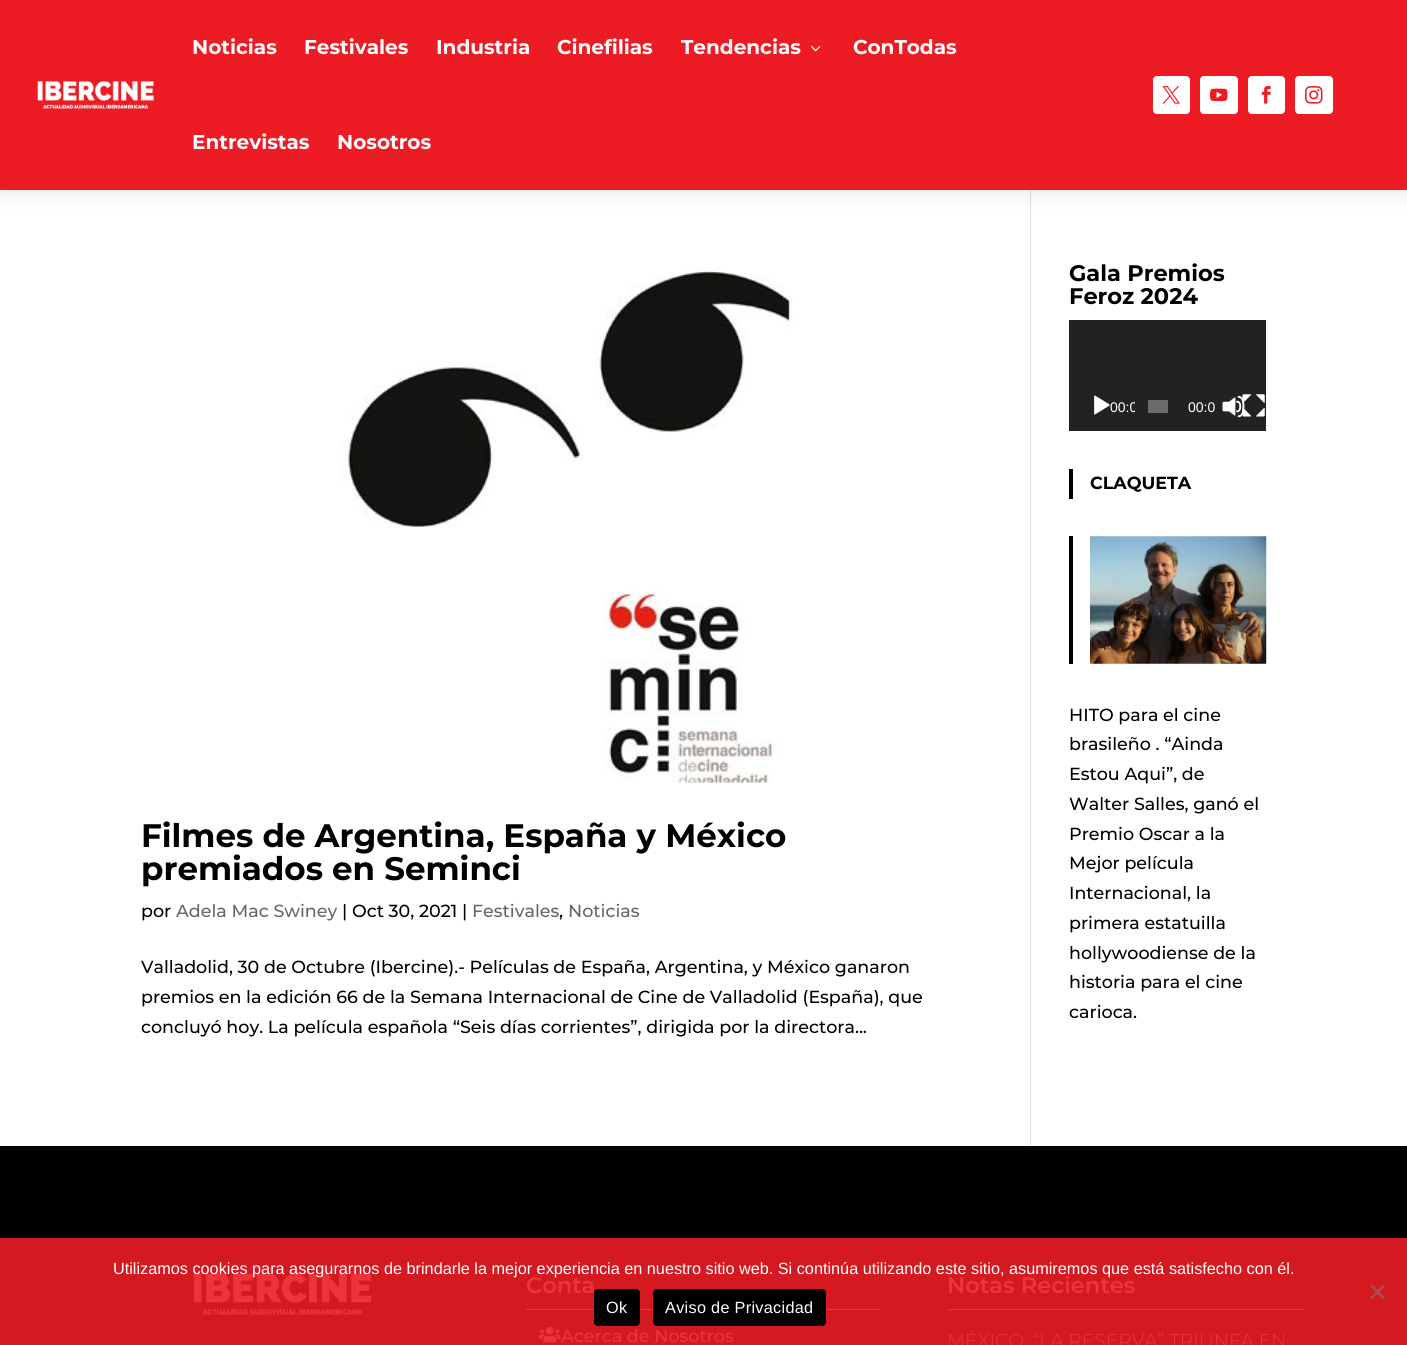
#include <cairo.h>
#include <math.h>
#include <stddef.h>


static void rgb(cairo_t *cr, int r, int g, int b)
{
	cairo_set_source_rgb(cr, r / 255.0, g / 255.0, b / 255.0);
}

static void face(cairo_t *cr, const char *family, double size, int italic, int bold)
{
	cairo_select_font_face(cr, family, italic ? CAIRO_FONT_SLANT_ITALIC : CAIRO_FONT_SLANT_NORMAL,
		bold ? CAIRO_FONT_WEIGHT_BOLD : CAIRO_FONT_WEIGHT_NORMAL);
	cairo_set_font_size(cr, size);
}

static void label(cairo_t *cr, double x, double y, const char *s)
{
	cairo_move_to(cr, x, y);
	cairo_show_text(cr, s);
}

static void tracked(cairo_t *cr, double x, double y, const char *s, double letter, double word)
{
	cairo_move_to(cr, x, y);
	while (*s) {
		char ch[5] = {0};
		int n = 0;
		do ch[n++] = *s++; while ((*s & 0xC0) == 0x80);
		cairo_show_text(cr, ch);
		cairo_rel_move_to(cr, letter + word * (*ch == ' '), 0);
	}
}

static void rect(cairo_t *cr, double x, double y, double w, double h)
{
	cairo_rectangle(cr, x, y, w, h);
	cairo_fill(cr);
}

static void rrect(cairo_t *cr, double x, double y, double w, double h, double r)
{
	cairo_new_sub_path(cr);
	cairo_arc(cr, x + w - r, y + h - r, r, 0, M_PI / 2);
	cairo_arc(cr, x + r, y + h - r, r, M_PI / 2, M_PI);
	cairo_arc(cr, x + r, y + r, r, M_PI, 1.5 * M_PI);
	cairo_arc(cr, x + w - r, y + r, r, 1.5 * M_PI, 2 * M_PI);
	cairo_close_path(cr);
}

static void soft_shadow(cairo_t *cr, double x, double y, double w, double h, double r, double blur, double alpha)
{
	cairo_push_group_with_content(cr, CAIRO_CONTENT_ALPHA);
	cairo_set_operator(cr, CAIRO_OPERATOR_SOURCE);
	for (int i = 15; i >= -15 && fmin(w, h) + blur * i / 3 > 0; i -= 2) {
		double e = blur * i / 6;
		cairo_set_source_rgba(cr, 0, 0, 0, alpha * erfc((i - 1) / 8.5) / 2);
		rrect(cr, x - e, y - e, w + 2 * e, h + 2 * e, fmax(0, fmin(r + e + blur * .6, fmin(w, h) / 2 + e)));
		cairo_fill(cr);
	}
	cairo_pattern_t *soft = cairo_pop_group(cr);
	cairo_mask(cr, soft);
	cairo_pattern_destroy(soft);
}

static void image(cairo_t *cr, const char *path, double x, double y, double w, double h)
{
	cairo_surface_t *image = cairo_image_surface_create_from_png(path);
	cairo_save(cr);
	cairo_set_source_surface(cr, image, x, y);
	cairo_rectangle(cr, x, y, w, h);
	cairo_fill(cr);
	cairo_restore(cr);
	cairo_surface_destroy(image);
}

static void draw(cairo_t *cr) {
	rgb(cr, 255, 255, 255);
	cairo_paint(cr);
	rgb(cr, 226, 226, 226);
	rect(cr, 1030, 190, 1, 956);
	rgb(cr, 0, 0, 0);
	soft_shadow(cr, 0, 3, 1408, 190, 0, 11, 0.1);
	rgb(cr, 237, 28, 36);
	rect(cr, 0, 0, 1407, 190);
	image(cr, "image0.png", 37, 81, 117, 28);
	face(cr, "Montserrat", 20, 0, 1);
	rgb(cr, 255, 255, 255);
	label(cr, 192, 54, "Noticias");
	label(cr, 304, 54, "Festivales");
	label(cr, 436, 54, "Industria");
	label(cr, 557, 54, "Cinefilias");
	label(cr, 681, 54, "Tendencias");
	image(cr, "image1.png", 811, 46, 10, 6);
	label(cr, 853, 54, "ConTodas");
	label(cr, 192, 149, "Entrevistas");
	label(cr, 337, 149, "Nosotros");
	rrect(cr, 1153.5, 76.5, 36, 37, 3.5);
	cairo_fill_preserve(cr);
	cairo_set_line_width(cr, 1);
	cairo_stroke(cr);
	image(cr, "image2.png", 1162, 86, 18, 18);
	rrect(cr, 1200.5, 76.5, 37, 37, 3.5);
	cairo_fill_preserve(cr);
	cairo_stroke(cr);
	image(cr, "image3.png", 1210, 88, 18, 14);
	rrect(cr, 1248.5, 76.5, 36, 37, 3.5);
	cairo_fill_preserve(cr);
	cairo_stroke(cr);
	image(cr, "image4.png", 1261, 86, 10, 18);
	rrect(cr, 1295.5, 76.5, 37, 37, 3.5);
	cairo_fill_preserve(cr);
	cairo_stroke(cr);
	image(cr, "image5.png", 1305, 86, 18, 18);
	image(cr, "image6.png", 340, 268, 453, 515);
	face(cr, "Montserrat", 32.5, 0, 1);
	rgb(cr, 0, 0, 0);
	label(cr, 141, 847, "Filmes de Argentina, España y México");
	label(cr, 141, 880, "premiados en Seminci");
	face(cr, "Montserrat Medium", 17.5, 0, 0);
	label(cr, 141, 917, "por");
	rgb(cr, 102, 102, 102);
	label(cr, 176, 917, "Adela Mac Swiney");
	rgb(cr, 0, 0, 0);
	label(cr, 342, 917, "| Oct 30, 2021 |");
	rgb(cr, 102, 102, 102);
	label(cr, 472, 917, "Festivales");
	rgb(cr, 0, 0, 0);
	label(cr, 559, 917, ",");
	rgb(cr, 102, 102, 102);
	label(cr, 568, 917, "Noticias");
	rgb(cr, 0, 0, 0);
	label(cr, 141, 973, "Valladolid, 30 de Octubre (Ibercine).- Películas de España, Argentina, y México ganaron");
	label(cr, 141, 1003, "premios en la edición 66 de la Semana Internacional de Cine de Valladolid (España), que");
	label(cr, 141, 1033, "concluyó hoy. La película española “Seis días corrientes”, dirigida por la directora...");
	face(cr, "Montserrat", 22.5, 0, 1);
	label(cr, 1069, 281, "Gala Premios");
	label(cr, 1069, 304, "Feroz 2024");
	rgb(cr, 34, 34, 34);
	rect(cr, 1069, 320, 197, 111);
	image(cr, "image7.png", 1094, 395, 16, 20);
	cairo_save(cr);
	cairo_rectangle(cr, 1103, 381, 32, 50);
	cairo_clip(cr);
	face(cr, "Liberation Sans", 14, 0, 0);
	rgb(cr, 255, 255, 255);
	label(cr, 1110, 412, "00:0");
	cairo_restore(cr);
	rgb(cr, 107, 107, 107);
	rect(cr, 1148, 400, 20, 13);
	face(cr, "Liberation Sans", 14, 0, 0);
	rgb(cr, 255, 255, 255);
	label(cr, 1188, 412, "00:0");
	image(cr, "image8.png", 1222, 395, 23, 23);
	image(cr, "image9.png", 1242, 394, 23, 23);
	rgb(cr, 0, 0, 0);
	rect(cr, 1069, 469, 4, 30);
	face(cr, "Montserrat", 17.5, 0, 1);
	label(cr, 1090, 489, "CLAQUETA");
	rect(cr, 1069, 536, 4, 128);
	image(cr, "image10.png", 1090, 536, 177, 128);
	face(cr, "Montserrat Medium", 17.5, 0, 0);
	label(cr, 1069, 721, "HITO para el cine");
	label(cr, 1069, 750, "brasileño . “Ainda");
	label(cr, 1069, 780, "Estou Aqui”, de");
	label(cr, 1069, 810, "Walter Salles, ganó el");
	label(cr, 1069, 840, "Premio Oscar a la");
	label(cr, 1069, 869, "Mejor película");
	label(cr, 1069, 899, "Internacional, la");
	label(cr, 1069, 929, "primera estatuilla");
	label(cr, 1069, 959, "hollywoodiense de la");
	label(cr, 1069, 988, "historia para el cine");
	label(cr, 1069, 1018, "carioca.");
	rect(cr, 0, 1146, 1407, 92);
	rgb(cr, 213, 25, 32);
	rect(cr, 0, 1238, 1407, 107);
	image(cr, "image11.png", 193, 1273, 179, 42);
	rgb(cr, 239, 51, 58);
	rect(cr, 526, 1309, 355, 1);
	face(cr, "Montserrat SemiBold", 22.5, 0, 0);
	label(cr, 526, 1293, "Conta");
	image(cr, "image12.png", 538, 1327, 23, 16);
	face(cr, "Montserrat Medium", 17.5, 0, 0);
	label(cr, 561, 1342, "Acerca de Nosotros");
	rect(cr, 948, 1309, 355, 1);
	face(cr, "Montserrat SemiBold", 22.5, 0, 0);
	label(cr, 947, 1293, "Notas Recientes");
	face(cr, "Montserrat Light", 18.75, 0, 0);
	label(cr, 947, 1347, "MÉXICO: “LA RESERVA” TRIUNFA EN");
	face(cr, "Liberation Sans", 16.25, 0, 0);
	rgb(cr, 255, 255, 255);
	label(cr, 113, 1274, "Utilizamos cookies para asegurarnos de brindarle la mejor experiencia en nuestro sitio web. Si continúa utilizando este sitio, asumiremos que está satisfecho con él.");
	rgb(cr, 171, 77, 80);
	cairo_new_path(cr);
	cairo_move_to(cr, 1383, 1284.5);
	cairo_line_to(cr, 1385, 1286);
	cairo_line_to(cr, 1372, 1299.5);
	cairo_line_to(cr, 1370, 1297.5);
	cairo_close_path(cr);
	cairo_fill(cr);
	cairo_new_path(cr);
	cairo_move_to(cr, 1370, 1286);
	cairo_line_to(cr, 1372, 1284.5);
	cairo_line_to(cr, 1385, 1297.5);
	cairo_line_to(cr, 1383, 1299.5);
	cairo_close_path(cr);
	cairo_fill(cr);
	rgb(cr, 0, 0, 0);
	rrect(cr, 594, 1289, 46, 37, 4);
	cairo_fill(cr);
	rgb(cr, 255, 255, 255);
	tracked(cr, 606, 1313, "Ok", 0.3, 0);
	rgb(cr, 0, 0, 0);
	rrect(cr, 653, 1289, 173, 37, 4);
	cairo_fill(cr);
	rgb(cr, 255, 255, 255);
	tracked(cr, 665, 1313, "Aviso de Privacidad", 0.3, 0);
}

int main(void) {
	cairo_surface_t *surface = cairo_image_surface_create(CAIRO_FORMAT_RGB24, 1407, 1345);
	cairo_t *cr = cairo_create(surface);
	cairo_font_options_t *options = cairo_font_options_create();
	cairo_font_options_set_hint_metrics(options, CAIRO_HINT_METRICS_OFF);
	cairo_font_options_set_hint_style(options, CAIRO_HINT_STYLE_NONE);
	cairo_set_font_options(cr, options);
	cairo_set_miter_limit(cr, 4);
	draw(cr);
	cairo_surface_write_to_png(surface, "render.png");
	cairo_font_options_destroy(options);
	cairo_destroy(cr);
	cairo_surface_destroy(surface);
	return 0;
}
